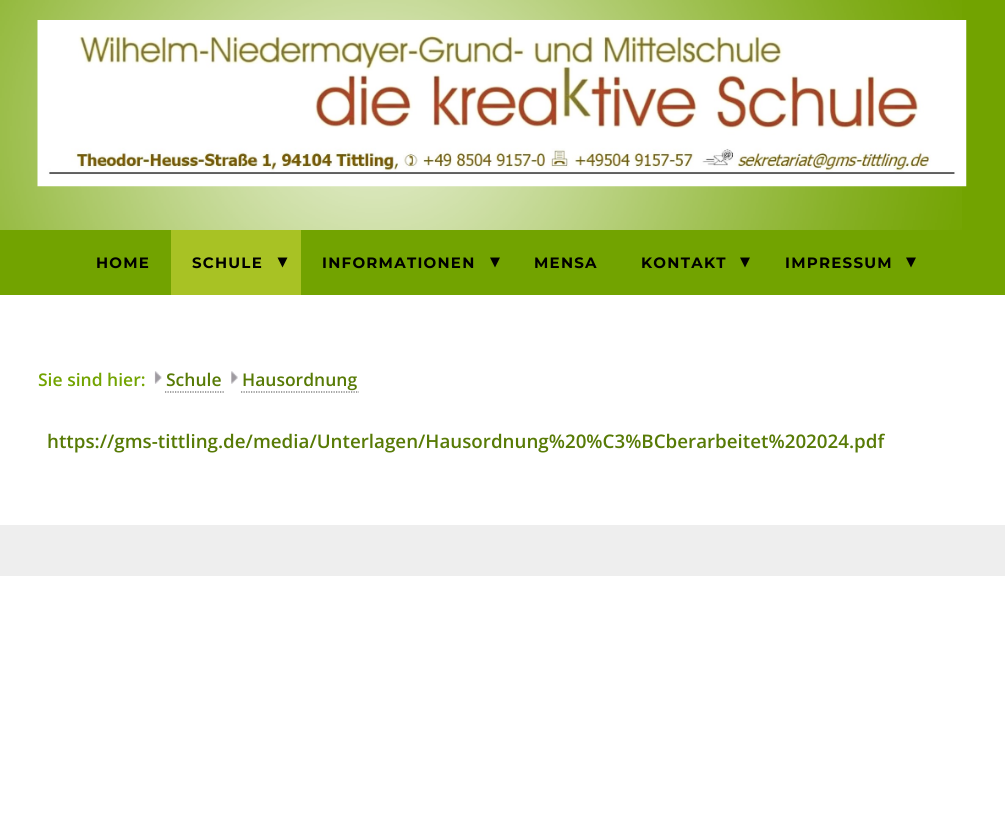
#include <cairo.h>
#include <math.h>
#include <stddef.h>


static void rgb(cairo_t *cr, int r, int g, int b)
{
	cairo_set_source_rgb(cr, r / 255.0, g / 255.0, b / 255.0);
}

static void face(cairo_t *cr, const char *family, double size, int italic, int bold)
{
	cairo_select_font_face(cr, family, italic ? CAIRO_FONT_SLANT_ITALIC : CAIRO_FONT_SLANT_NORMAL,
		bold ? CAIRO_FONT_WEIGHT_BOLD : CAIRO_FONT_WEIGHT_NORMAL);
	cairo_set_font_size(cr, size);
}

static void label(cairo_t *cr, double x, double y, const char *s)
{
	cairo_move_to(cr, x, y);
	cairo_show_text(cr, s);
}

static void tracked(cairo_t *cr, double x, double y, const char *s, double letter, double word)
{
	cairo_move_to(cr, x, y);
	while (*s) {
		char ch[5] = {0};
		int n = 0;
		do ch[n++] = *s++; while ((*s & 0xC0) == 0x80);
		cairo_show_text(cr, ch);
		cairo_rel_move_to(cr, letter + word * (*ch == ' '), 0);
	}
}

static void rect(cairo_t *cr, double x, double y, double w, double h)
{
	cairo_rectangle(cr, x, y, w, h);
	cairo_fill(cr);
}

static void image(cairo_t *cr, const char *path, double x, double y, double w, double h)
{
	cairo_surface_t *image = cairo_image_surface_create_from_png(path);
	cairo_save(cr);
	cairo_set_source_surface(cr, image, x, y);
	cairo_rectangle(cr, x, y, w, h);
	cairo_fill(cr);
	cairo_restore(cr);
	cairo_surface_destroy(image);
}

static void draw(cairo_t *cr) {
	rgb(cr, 255, 255, 255);
	cairo_paint(cr);
	rgb(cr, 114, 163, 0);
	rect(cr, 0, 0, 1005, 295);
	image(cr, "image0.png", 0, 0, 962, 230);
	image(cr, "image1.png", 37, 20, 930, 167);
	face(cr, "Montserrat", 15, 0, 1);
	rgb(cr, 0, 0, 0);
	tracked(cr, 96, 268, "HOME", 1.25, 0);
	rgb(cr, 168, 194, 36);
	rect(cr, 171, 230, 130, 65);
	rgb(cr, 0, 0, 0);
	tracked(cr, 192, 268, "SCHULE", 1.25, 0);
	cairo_new_path(cr);
	cairo_move_to(cr, 277.5, 257.5);
	cairo_line_to(cr, 287.5, 257.5);
	cairo_line_to(cr, 282.5, 267.5);
	cairo_close_path(cr);
	cairo_fill(cr);
	tracked(cr, 322, 268, "INFORMATIONEN", 1.25, 0);
	cairo_new_path(cr);
	cairo_move_to(cr, 490, 257.5);
	cairo_line_to(cr, 500, 257.5);
	cairo_line_to(cr, 495, 267.5);
	cairo_close_path(cr);
	cairo_fill(cr);
	tracked(cr, 534, 268, "MENSA", 1.25, 0);
	tracked(cr, 641, 268, "KONTAKT", 1.25, 0);
	cairo_new_path(cr);
	cairo_move_to(cr, 740, 257.5);
	cairo_line_to(cr, 750, 257.5);
	cairo_line_to(cr, 745, 267.5);
	cairo_close_path(cr);
	cairo_fill(cr);
	tracked(cr, 785, 268, "IMPRESSUM", 1.25, 0);
	cairo_new_path(cr);
	cairo_move_to(cr, 906, 257.5);
	cairo_line_to(cr, 916, 257.5);
	cairo_line_to(cr, 911, 267.5);
	cairo_close_path(cr);
	cairo_fill(cr);
	face(cr, "Open Sans SemiBold", 17.5, 0, 0);
	rgb(cr, 114, 163, 0);
	label(cr, 38, 386, "Sie sind hier:");
	image(cr, "image2.png", 154, 371, 8, 13);
	rgb(cr, 87, 122, 5);
	label(cr, 166, 386, "Schule");
	cairo_new_path(cr);
	cairo_move_to(cr, 165, 392);
	cairo_line_to(cr, 224, 392);
	rgb(cr, 102, 102, 102);
	cairo_set_line_width(cr, 1.2);
	cairo_set_dash(cr, (double[]){1.25, 1.25}, 2, 0);
	cairo_stroke(cr);
	image(cr, "image3.png", 231, 371, 7, 13);
	rgb(cr, 87, 122, 5);
	label(cr, 242, 386, "Hausordnung");
	cairo_new_path(cr);
	cairo_move_to(cr, 241, 392);
	cairo_line_to(cr, 359, 392);
	rgb(cr, 102, 102, 102);
	cairo_stroke(cr);
	face(cr, "Open Sans SemiBold", 18.75, 0, 0);
	rgb(cr, 87, 122, 5);
	label(cr, 47, 448, "https://gms-tittling.de/media/Unterlagen/Hausordnung%20%C3%BCberarbeitet%202024.pdf");
	rgb(cr, 238, 238, 238);
	rect(cr, 0, 525, 1005, 51);
}

int main(void) {
	cairo_surface_t *surface = cairo_image_surface_create(CAIRO_FORMAT_RGB24, 1005, 815);
	cairo_t *cr = cairo_create(surface);
	cairo_font_options_t *options = cairo_font_options_create();
	cairo_font_options_set_hint_metrics(options, CAIRO_HINT_METRICS_OFF);
	cairo_font_options_set_hint_style(options, CAIRO_HINT_STYLE_NONE);
	cairo_set_font_options(cr, options);
	cairo_set_miter_limit(cr, 4);
	draw(cr);
	cairo_surface_write_to_png(surface, "render.png");
	cairo_font_options_destroy(options);
	cairo_destroy(cr);
	cairo_surface_destroy(surface);
	return 0;
}
